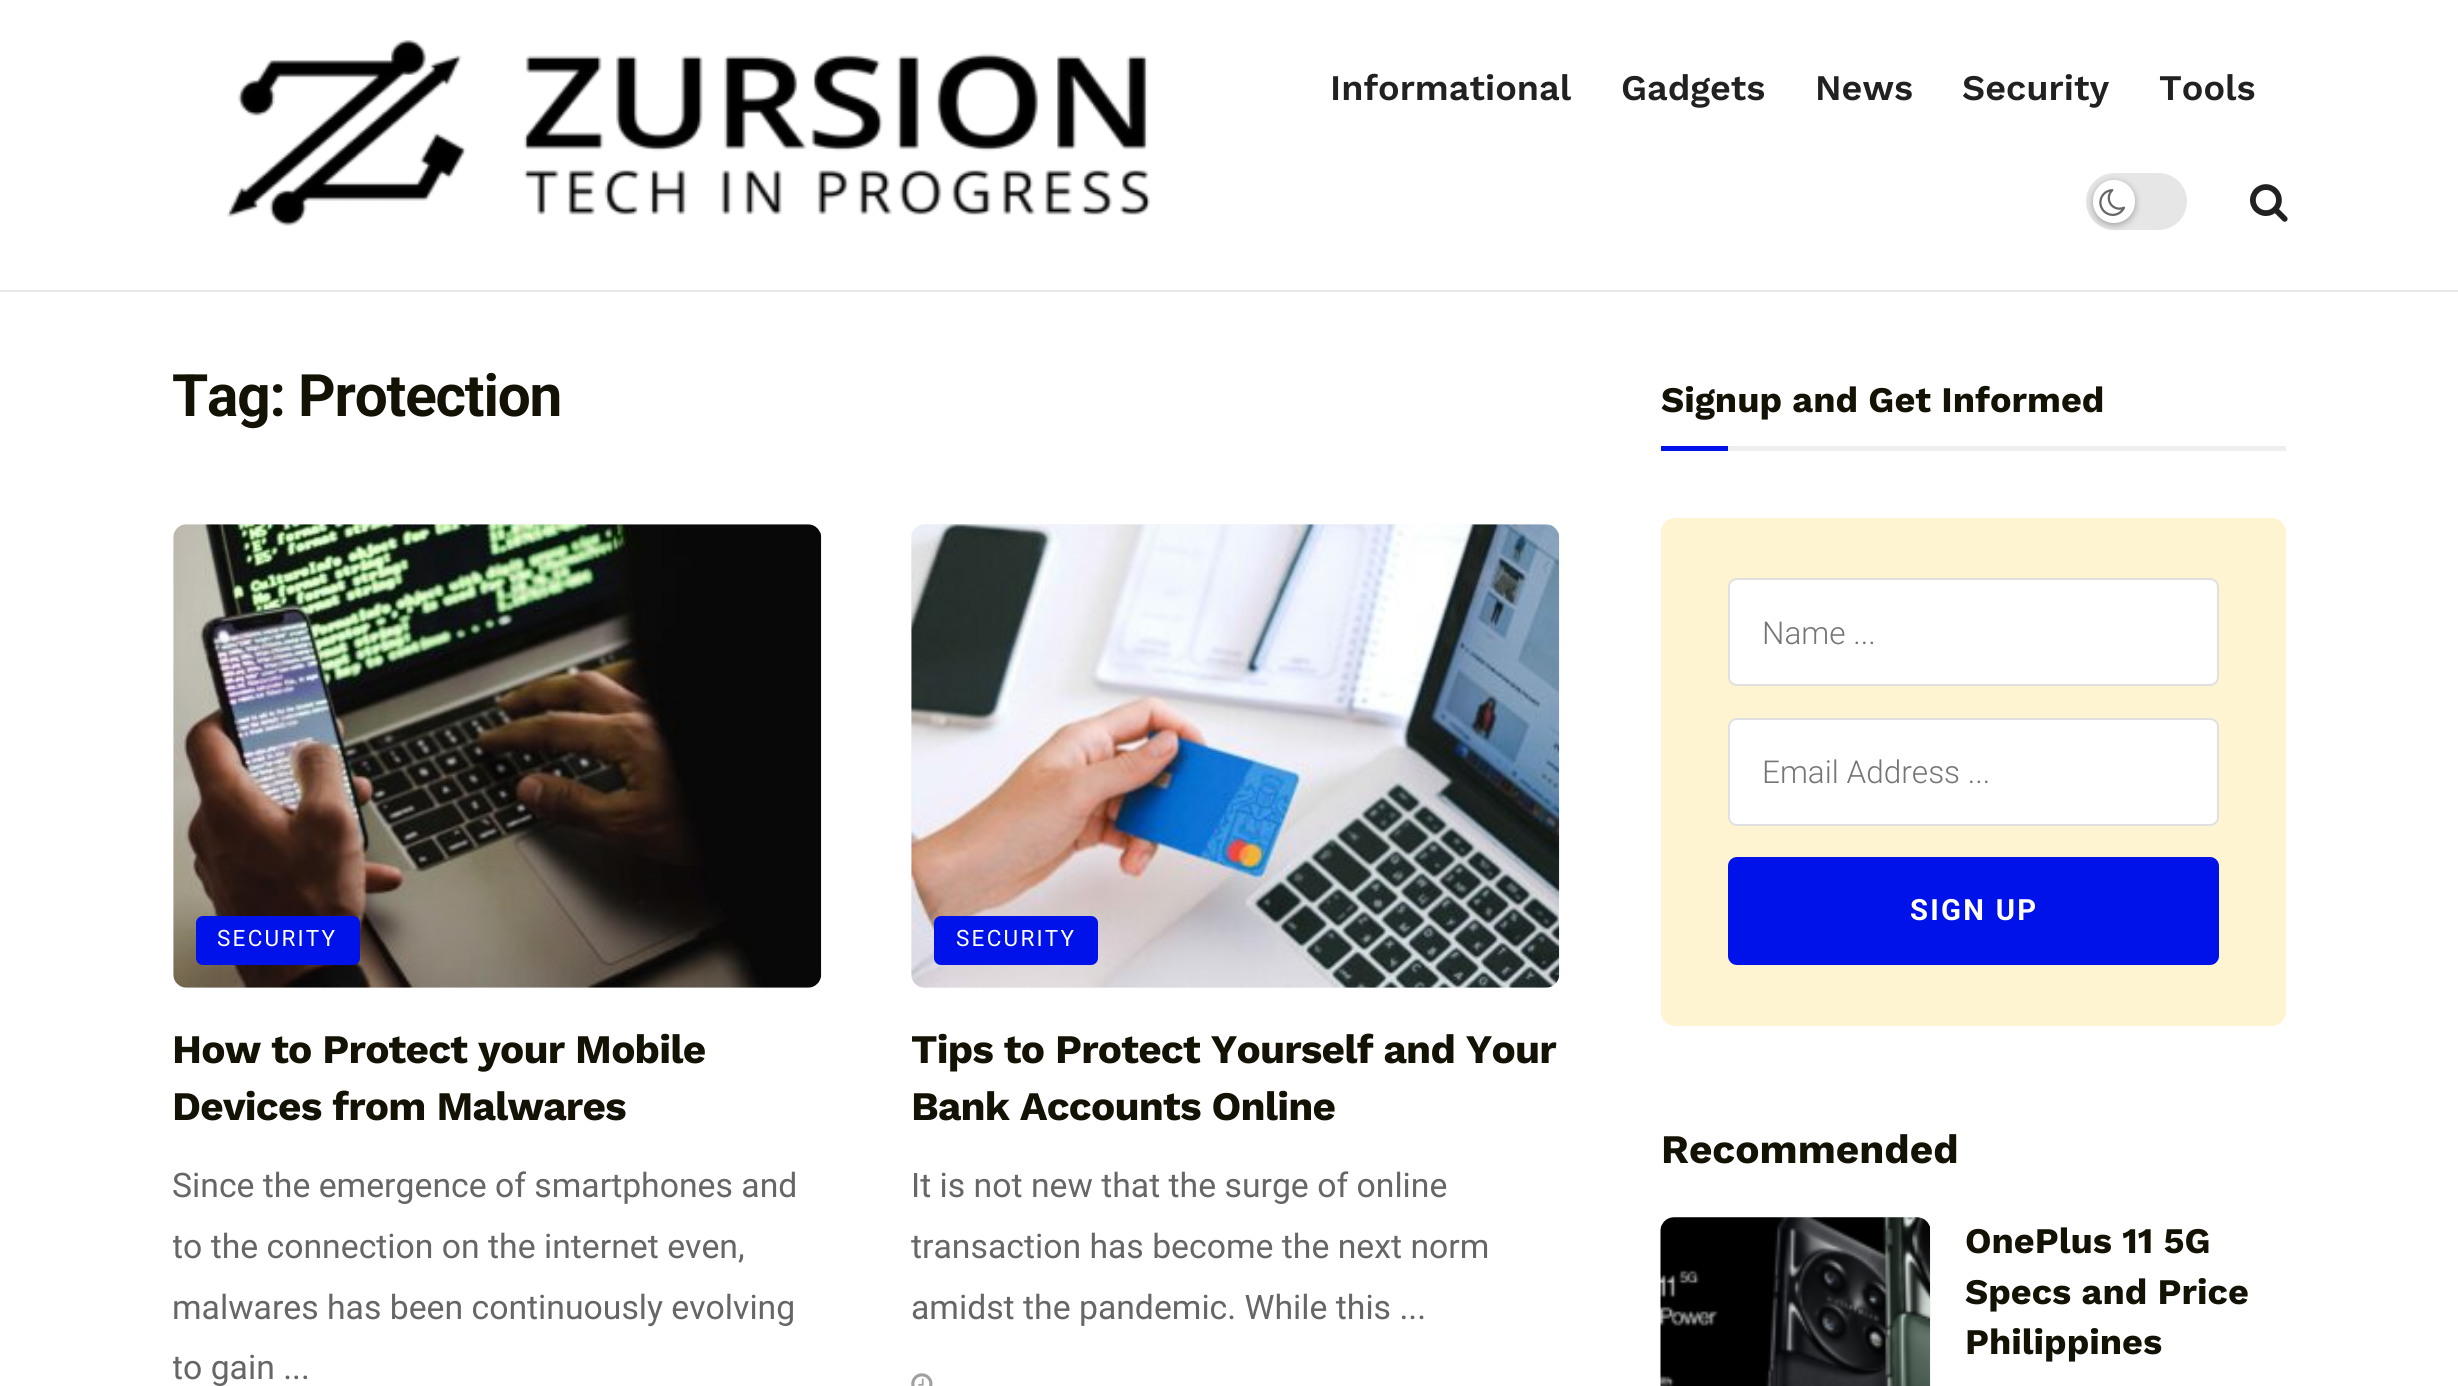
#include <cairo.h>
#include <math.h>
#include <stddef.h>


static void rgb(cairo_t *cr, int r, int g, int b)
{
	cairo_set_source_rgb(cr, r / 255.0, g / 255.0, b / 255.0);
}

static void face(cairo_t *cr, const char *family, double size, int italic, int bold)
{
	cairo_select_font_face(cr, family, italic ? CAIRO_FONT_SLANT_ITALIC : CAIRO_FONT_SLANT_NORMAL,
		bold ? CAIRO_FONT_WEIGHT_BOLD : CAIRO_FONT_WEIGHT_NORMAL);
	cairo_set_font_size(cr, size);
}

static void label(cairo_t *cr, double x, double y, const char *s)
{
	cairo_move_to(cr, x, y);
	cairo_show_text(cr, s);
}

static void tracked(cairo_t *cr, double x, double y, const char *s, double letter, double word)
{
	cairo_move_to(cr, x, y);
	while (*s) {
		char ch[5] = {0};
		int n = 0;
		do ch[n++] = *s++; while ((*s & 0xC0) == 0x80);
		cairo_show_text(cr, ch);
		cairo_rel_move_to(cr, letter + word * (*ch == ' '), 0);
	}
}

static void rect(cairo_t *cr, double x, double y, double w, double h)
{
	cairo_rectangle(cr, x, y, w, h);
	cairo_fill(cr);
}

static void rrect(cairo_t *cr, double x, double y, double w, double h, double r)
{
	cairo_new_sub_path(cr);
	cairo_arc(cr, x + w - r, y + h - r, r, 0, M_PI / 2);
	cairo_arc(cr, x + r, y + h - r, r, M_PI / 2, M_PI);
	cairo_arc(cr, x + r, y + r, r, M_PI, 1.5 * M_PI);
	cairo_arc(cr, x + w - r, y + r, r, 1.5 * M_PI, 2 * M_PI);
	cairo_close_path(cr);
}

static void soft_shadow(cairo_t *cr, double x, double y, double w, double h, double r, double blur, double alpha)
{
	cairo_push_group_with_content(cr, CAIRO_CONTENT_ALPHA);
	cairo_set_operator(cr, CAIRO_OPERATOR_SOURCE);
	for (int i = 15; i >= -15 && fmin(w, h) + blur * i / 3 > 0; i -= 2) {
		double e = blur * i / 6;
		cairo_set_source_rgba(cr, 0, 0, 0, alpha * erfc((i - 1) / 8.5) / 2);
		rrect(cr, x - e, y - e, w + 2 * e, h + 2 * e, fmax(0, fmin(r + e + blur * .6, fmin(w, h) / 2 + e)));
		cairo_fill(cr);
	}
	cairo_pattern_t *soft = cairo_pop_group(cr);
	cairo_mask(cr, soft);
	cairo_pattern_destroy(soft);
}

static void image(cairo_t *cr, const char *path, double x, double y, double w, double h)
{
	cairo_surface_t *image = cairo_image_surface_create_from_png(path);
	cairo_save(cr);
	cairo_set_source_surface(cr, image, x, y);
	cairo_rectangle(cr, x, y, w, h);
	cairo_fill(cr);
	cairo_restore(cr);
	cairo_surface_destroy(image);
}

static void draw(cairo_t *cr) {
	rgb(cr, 255, 255, 255);
	cairo_paint(cr);
	rgb(cr, 232, 232, 232);
	rect(cr, 0, 290, 2458, 2);
	image(cr, "image0.png", 227, 40, 924, 186);
	face(cr, "Work Sans SemiBold", 36, 0, 0);
	rgb(cr, 33, 33, 33);
	label(cr, 1330, 100, "Informational");
	label(cr, 1621, 100, "Gadgets");
	label(cr, 1815, 100, "News");
	label(cr, 1962, 100, "Security");
	label(cr, 2159, 100, "Tools");
	rgb(cr, 230, 230, 230);
	rrect(cr, 2086, 173, 101, 57, 28.5);
	cairo_fill(cr);
	rgb(cr, 0, 0, 0);
	soft_shadow(cr, 2093, 182, 42, 43, 21, 3.5, 0.3);
	rgb(cr, 255, 255, 255);
	rrect(cr, 2093, 180, 42, 43, 21);
	cairo_fill(cr);
	image(cr, "image1.png", 2099, 189, 27, 27);
	image(cr, "image2.png", 2250, 184, 38, 38);
	face(cr, "Roboto", 58.5, 0, 1);
	rgb(cr, 20, 18, 4);
	tracked(cr, 172, 416, "Tag: Protection", -1.2, 0);
	rgb(cr, 247, 247, 247);
	rrect(cr, 173, 524, 648, 464, 14);
	cairo_fill(cr);
	image(cr, "image3.png", 173, 524, 649, 464);
	rgb(cr, 0, 18, 234);
	rrect(cr, 196, 916, 164, 49, 7);
	cairo_fill(cr);
	face(cr, "Roboto", 22.5, 0, 0);
	rgb(cr, 255, 255, 255);
	tracked(cr, 217, 946, "SECURITY", 2.25, 0);
	face(cr, "Work Sans", 40.5, 0, 1);
	rgb(cr, 20, 18, 4);
	tracked(cr, 172, 1063, "How to Protect your Mobile", -0.8, 0);
	tracked(cr, 172, 1120, "Devices from Malwares", -0.8, 0);
	face(cr, "Roboto", 33.75, 0, 0);
	rgb(cr, 102, 102, 102);
	label(cr, 172, 1197, "Since the emergence of smartphones and");
	cairo_save(cr);
	cairo_rectangle(cr, 173, 524, 1386, 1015);
	cairo_clip(cr);
	label(cr, 172, 1258, "to the connection on the internet even,");
	cairo_restore(cr);
	label(cr, 172, 1319, "malwares has been continuously evolving");
	cairo_save(cr);
	cairo_rectangle(cr, 173, 524, 1386, 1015);
	cairo_clip(cr);
	label(cr, 172, 1379, "to gain ...");
	cairo_restore(cr);
	rgb(cr, 247, 247, 247);
	rrect(cr, 911, 524, 648, 464, 14);
	cairo_fill(cr);
	image(cr, "image4.png", 911, 524, 649, 464);
	rgb(cr, 0, 18, 234);
	rrect(cr, 934, 916, 164, 49, 7);
	cairo_fill(cr);
	face(cr, "Roboto", 22.5, 0, 0);
	rgb(cr, 255, 255, 255);
	tracked(cr, 956, 946, "SECURITY", 2.25, 0);
	face(cr, "Work Sans", 40.5, 0, 1);
	rgb(cr, 20, 18, 4);
	tracked(cr, 911, 1063, "Tips to Protect Yourself and Your", -0.8, 0);
	tracked(cr, 911, 1120, "Bank Accounts Online", -0.8, 0);
	face(cr, "Roboto", 33.75, 0, 0);
	rgb(cr, 102, 102, 102);
	label(cr, 911, 1197, "It is not new that the surge of online");
	label(cr, 911, 1258, "transaction has become the next norm");
	label(cr, 911, 1319, "amidst the pandemic. While this ...");
	image(cr, "image5.png", 911, 1373, 22, 13);
	rgb(cr, 238, 238, 238);
	rect(cr, 1728, 446, 558, 5);
	face(cr, "Work Sans", 36, 0, 1);
	rgb(cr, 20, 18, 4);
	label(cr, 1661, 412, "Signup and Get Informed");
	rgb(cr, 0, 18, 234);
	rect(cr, 1661, 446, 67, 5);
	rgb(cr, 255, 244, 209);
	rrect(cr, 1661, 518, 625, 508, 14);
	cairo_fill(cr);
	rgb(cr, 255, 255, 255);
	rrect(cr, 1729, 579, 489, 106, 8);
	cairo_fill_preserve(cr);
	rgb(cr, 224, 224, 224);
	cairo_stroke(cr);
	face(cr, "Roboto Light", 31.5, 0, 0);
	rgb(cr, 117, 117, 117);
	label(cr, 1762, 644, "Name ...");
	rgb(cr, 255, 255, 255);
	rrect(cr, 1729, 719, 489, 106, 8);
	cairo_fill_preserve(cr);
	rgb(cr, 224, 224, 224);
	cairo_stroke(cr);
	rgb(cr, 117, 117, 117);
	label(cr, 1762, 783, "Email Address ...");
	rgb(cr, 0, 18, 234);
	rrect(cr, 1728, 857, 491, 108, 9);
	cairo_fill(cr);
	face(cr, "Roboto", 29.25, 0, 1);
	rgb(cr, 255, 255, 255);
	tracked(cr, 1910, 920, "SIGN UP", 2.25, 0);
	face(cr, "Work Sans", 40.5, 0, 1);
	rgb(cr, 20, 18, 4);
	label(cr, 1661, 1163, "Recommended");
	rgb(cr, 247, 247, 247);
	rrect(cr, 1661, 1217, 270, 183, 14);
	cairo_fill(cr);
	image(cr, "image6.png", 1660, 1225, 2, 161);
	image(cr, "image7.png", 1660, 1217, 270, 169);
	face(cr, "Work Sans", 36, 0, 1);
	rgb(cr, 20, 18, 4);
	label(cr, 1965, 1253, "OnePlus 11 5G");
	label(cr, 1965, 1304, "Specs and Price");
	label(cr, 1965, 1354, "Philippines");
}

int main(void) {
	cairo_surface_t *surface = cairo_image_surface_create(CAIRO_FORMAT_RGB24, 2458, 1386);
	cairo_t *cr = cairo_create(surface);
	cairo_font_options_t *options = cairo_font_options_create();
	cairo_font_options_set_hint_metrics(options, CAIRO_HINT_METRICS_OFF);
	cairo_font_options_set_hint_style(options, CAIRO_HINT_STYLE_NONE);
	cairo_set_font_options(cr, options);
	cairo_set_miter_limit(cr, 4);
	draw(cr);
	cairo_surface_write_to_png(surface, "render.png");
	cairo_font_options_destroy(options);
	cairo_destroy(cr);
	cairo_surface_destroy(surface);
	return 0;
}
